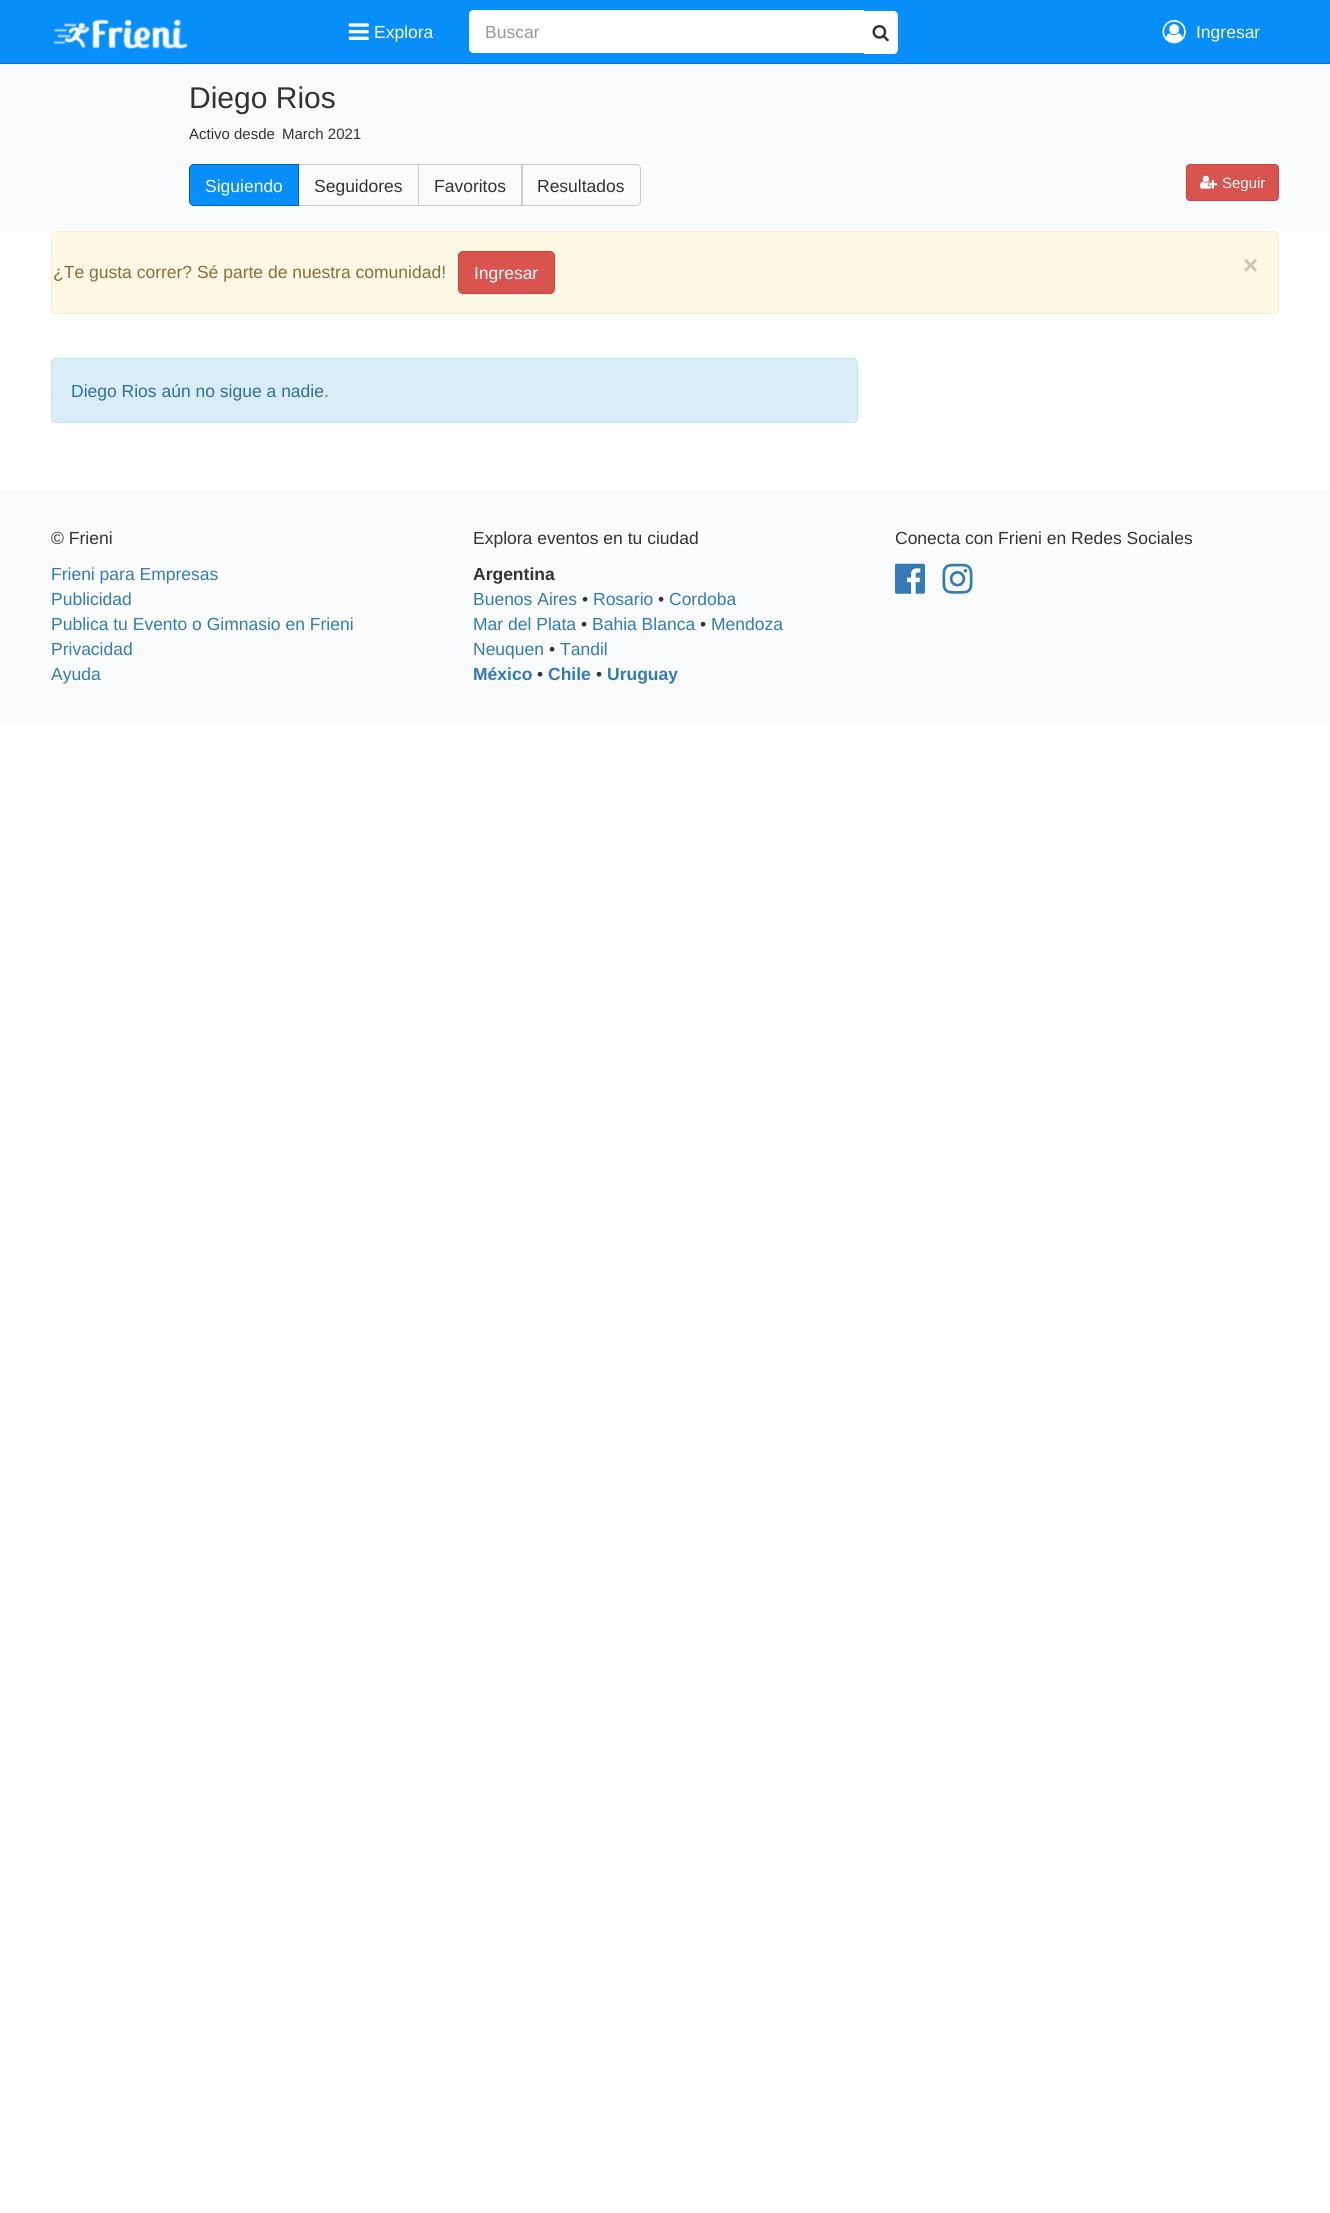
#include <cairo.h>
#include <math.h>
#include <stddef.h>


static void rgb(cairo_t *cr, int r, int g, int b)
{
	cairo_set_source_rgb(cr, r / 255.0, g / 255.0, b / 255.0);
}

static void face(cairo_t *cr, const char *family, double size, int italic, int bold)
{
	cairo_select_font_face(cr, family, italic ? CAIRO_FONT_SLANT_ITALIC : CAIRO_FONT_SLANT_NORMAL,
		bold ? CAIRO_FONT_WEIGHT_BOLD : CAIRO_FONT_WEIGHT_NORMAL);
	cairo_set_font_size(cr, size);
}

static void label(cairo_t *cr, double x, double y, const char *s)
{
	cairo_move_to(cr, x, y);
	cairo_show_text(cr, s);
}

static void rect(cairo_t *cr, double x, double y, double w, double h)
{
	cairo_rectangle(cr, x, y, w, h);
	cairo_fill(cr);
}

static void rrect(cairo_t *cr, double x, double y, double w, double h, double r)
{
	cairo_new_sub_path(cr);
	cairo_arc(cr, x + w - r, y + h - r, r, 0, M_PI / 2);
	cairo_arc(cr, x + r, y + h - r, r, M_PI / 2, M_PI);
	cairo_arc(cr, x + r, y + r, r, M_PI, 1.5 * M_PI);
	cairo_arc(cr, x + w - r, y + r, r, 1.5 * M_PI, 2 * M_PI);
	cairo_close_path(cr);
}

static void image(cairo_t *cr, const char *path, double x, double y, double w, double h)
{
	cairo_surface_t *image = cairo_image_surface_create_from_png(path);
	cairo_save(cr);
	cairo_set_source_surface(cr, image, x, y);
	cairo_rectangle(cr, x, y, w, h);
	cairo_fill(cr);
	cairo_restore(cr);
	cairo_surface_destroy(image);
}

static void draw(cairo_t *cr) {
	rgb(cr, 255, 255, 255);
	cairo_paint(cr);
	rgb(cr, 6, 142, 251);
	rect(cr, 0, 0, 1330, 63);
	rgb(cr, 0, 111, 230);
	rect(cr, 0, 63, 1330, 1);
	image(cr, "image0.png", 53, 19, 136, 30);
	image(cr, "image1.png", 348, 23, 21, 17);
	face(cr, "Liberation Sans", 17.5, 0, 0);
	rgb(cr, 255, 255, 255);
	label(cr, 374, 38, "Explora");
	cairo_new_path(cr);
	cairo_move_to(cr, 474, 10.5);
	cairo_line_to(cr, 863.5, 10.5);
	cairo_line_to(cr, 863.5, 52.5);
	cairo_line_to(cr, 474, 52.5);
	cairo_curve_to(cr, 471.5, 52.5, 469.5, 50.5, 469.5, 48);
	cairo_line_to(cr, 469.5, 15);
	cairo_curve_to(cr, 469.5, 12.5, 471.5, 10.5, 474, 10.5);
	cairo_close_path(cr);
	cairo_fill_preserve(cr);
	cairo_set_line_width(cr, 1);
	cairo_stroke(cr);
	cairo_new_path(cr);
	cairo_move_to(cr, 474, 10.5);
	cairo_line_to(cr, 863.5, 10.5);
	cairo_line_to(cr, 863.5, 52.5);
	cairo_line_to(cr, 474, 52.5);
	cairo_curve_to(cr, 471.5, 52.5, 469.5, 50.5, 469.5, 48);
	cairo_line_to(cr, 469.5, 15);
	cairo_curve_to(cr, 469.5, 12.5, 471.5, 10.5, 474, 10.5);
	cairo_close_path(cr);
	cairo_stroke(cr);
	rgb(cr, 153, 153, 153);
	label(cr, 485, 38, "Buscar");
	rgb(cr, 255, 255, 255);
	cairo_new_path(cr);
	cairo_move_to(cr, 864, 11);
	cairo_line_to(cr, 893, 11);
	cairo_curve_to(cr, 896, 11, 898, 13, 898, 16);
	cairo_line_to(cr, 898, 49);
	cairo_curve_to(cr, 898, 52, 896, 54, 893, 54);
	cairo_line_to(cr, 864, 54);
	cairo_close_path(cr);
	cairo_fill(cr);
	image(cr, "image2.png", 872, 25, 17, 17);
	image(cr, "image3.png", 1162, 20, 24, 24);
	label(cr, 1196, 38, "Ingresar");
	rgb(cr, 250, 251, 252);
	rect(cr, 0, 64, 1330, 167);
	face(cr, "Liberation Sans", 30, 0, 0);
	rgb(cr, 51, 51, 51);
	label(cr, 189, 108, "Diego Rios");
	face(cr, "Liberation Sans", 15, 0, 0);
	label(cr, 189, 139, "Activo desde");
	label(cr, 282, 139, "March 2021");
	cairo_rectangle(cr, 298.5, 164.5, 120, 41);
	rgb(cr, 204, 204, 204);
	cairo_stroke(cr);
	rgb(cr, 6, 142, 251);
	cairo_new_path(cr);
	cairo_move_to(cr, 194, 164.5);
	cairo_line_to(cr, 298.5, 164.5);
	cairo_line_to(cr, 298.5, 205.5);
	cairo_line_to(cr, 194, 205.5);
	cairo_curve_to(cr, 191.5, 205.5, 189.5, 203.5, 189.5, 201);
	cairo_line_to(cr, 189.5, 169);
	cairo_curve_to(cr, 189.5, 166.5, 191.5, 164.5, 194, 164.5);
	cairo_close_path(cr);
	cairo_fill_preserve(cr);
	rgb(cr, 0, 94, 194);
	cairo_stroke(cr);
	face(cr, "Liberation Sans", 17.5, 0, 0);
	rgb(cr, 255, 255, 255);
	label(cr, 205, 192, "Siguiendo");
	rgb(cr, 51, 51, 51);
	label(cr, 314, 192, "Seguidores");
	cairo_rectangle(cr, 418.5, 164.5, 104, 41);
	rgb(cr, 204, 204, 204);
	cairo_stroke(cr);
	rgb(cr, 51, 51, 51);
	label(cr, 434, 192, "Favoritos");
	cairo_new_path(cr);
	cairo_move_to(cr, 521.5, 164.5);
	cairo_line_to(cr, 636, 164.5);
	cairo_curve_to(cr, 638.5, 164.5, 640.5, 166.5, 640.5, 169);
	cairo_line_to(cr, 640.5, 201);
	cairo_curve_to(cr, 640.5, 203.5, 638.5, 205.5, 636, 205.5);
	cairo_line_to(cr, 521.5, 205.5);
	cairo_close_path(cr);
	rgb(cr, 204, 204, 204);
	cairo_stroke(cr);
	rgb(cr, 51, 51, 51);
	label(cr, 537, 192, "Resultados");
	rgb(cr, 217, 83, 79);
	rrect(cr, 1186.5, 164.5, 92, 36, 3.5);
	cairo_fill_preserve(cr);
	rgb(cr, 212, 63, 58);
	cairo_stroke(cr);
	image(cr, "image4.png", 1200, 175, 18, 14);
	face(cr, "Liberation Sans", 15, 0, 0);
	rgb(cr, 255, 255, 255);
	label(cr, 1222, 188, "Seguir");
	rgb(cr, 252, 248, 227);
	rrect(cr, 51.5, 231.5, 1227, 82, 4.5);
	cairo_fill_preserve(cr);
	rgb(cr, 250, 235, 204);
	cairo_stroke(cr);
	face(cr, "Liberation Sans", 17.5, 0, 0);
	rgb(cr, 138, 109, 59);
	label(cr, 53, 278, "¿Te gusta correr? Sé parte de nuestra comunidad!");
	rgb(cr, 217, 83, 79);
	rrect(cr, 458.5, 251.5, 96, 42, 4.5);
	cairo_fill_preserve(cr);
	rgb(cr, 212, 63, 58);
	cairo_stroke(cr);
	rgb(cr, 255, 255, 255);
	label(cr, 474, 279, "Ingresar");
	face(cr, "Liberation Sans", 26, 0, 1);
	rgb(cr, 202, 198, 182);
	label(cr, 1243, 274, "×");
	rgb(cr, 217, 237, 247);
	rrect(cr, 51.5, 358.5, 806, 64, 4.5);
	cairo_fill_preserve(cr);
	rgb(cr, 188, 232, 241);
	cairo_stroke(cr);
	face(cr, "Liberation Sans", 17.5, 0, 0);
	rgb(cr, 49, 112, 143);
	label(cr, 71, 397, "Diego Rios aún no sigue a nadie.");
	rgb(cr, 250, 251, 252);
	rect(cr, 0, 491, 1330, 233);
	rgb(cr, 51, 51, 51);
	label(cr, 51, 544, "© Frieni");
	rgb(cr, 51, 122, 183);
	label(cr, 51, 580, "Frieni para Empresas");
	label(cr, 51, 605, "Publicidad");
	label(cr, 51, 630, "Publica tu Evento o Gimnasio en Frieni");
	label(cr, 51, 655, "Privacidad");
	label(cr, 51, 680, "Ayuda");
	rgb(cr, 51, 51, 51);
	label(cr, 473, 544, "Explora eventos en tu ciudad");
	face(cr, "Liberation Sans", 17.5, 0, 1);
	label(cr, 473, 580, "Argentina");
	face(cr, "Liberation Sans", 17.5, 0, 0);
	rgb(cr, 51, 122, 183);
	label(cr, 473, 605, "Buenos Aires");
	rgb(cr, 51, 51, 51);
	label(cr, 582, 605, "•");
	rgb(cr, 51, 122, 183);
	label(cr, 593, 605, "Rosario");
	rgb(cr, 51, 51, 51);
	label(cr, 658, 605, "•");
	rgb(cr, 51, 122, 183);
	label(cr, 669, 605, "Cordoba");
	label(cr, 473, 630, "Mar del Plata");
	rgb(cr, 51, 51, 51);
	label(cr, 581, 630, "•");
	rgb(cr, 51, 122, 183);
	label(cr, 592, 630, "Bahia Blanca");
	rgb(cr, 51, 51, 51);
	label(cr, 700, 630, "•");
	rgb(cr, 51, 122, 183);
	label(cr, 711, 630, "Mendoza");
	label(cr, 473, 655, "Neuquen");
	rgb(cr, 51, 51, 51);
	label(cr, 549, 655, "•");
	rgb(cr, 51, 122, 183);
	label(cr, 560, 655, "Tandil");
	face(cr, "Liberation Sans", 17.5, 0, 1);
	label(cr, 473, 680, "México");
	face(cr, "Liberation Sans", 17.5, 0, 0);
	rgb(cr, 51, 51, 51);
	label(cr, 537, 680, "•");
	face(cr, "Liberation Sans", 17.5, 0, 1);
	rgb(cr, 51, 122, 183);
	label(cr, 548, 680, "Chile");
	face(cr, "Liberation Sans", 17.5, 0, 0);
	rgb(cr, 51, 51, 51);
	label(cr, 596, 680, "•");
	face(cr, "Liberation Sans", 17.5, 0, 1);
	rgb(cr, 51, 122, 183);
	label(cr, 607, 680, "Uruguay");
	face(cr, "Liberation Sans", 17.5, 0, 0);
	rgb(cr, 51, 51, 51);
	label(cr, 895, 544, "Conecta con Frieni en Redes Sociales");
	image(cr, "image5.png", 895, 563, 30, 31);
	image(cr, "image6.png", 942, 563, 31, 31);
}

int main(void) {
	cairo_surface_t *surface = cairo_image_surface_create(CAIRO_FORMAT_RGB24, 1330, 2213);
	cairo_t *cr = cairo_create(surface);
	cairo_font_options_t *options = cairo_font_options_create();
	cairo_font_options_set_hint_metrics(options, CAIRO_HINT_METRICS_OFF);
	cairo_font_options_set_hint_style(options, CAIRO_HINT_STYLE_NONE);
	cairo_set_font_options(cr, options);
	cairo_set_miter_limit(cr, 4);
	draw(cr);
	cairo_surface_write_to_png(surface, "render.png");
	cairo_font_options_destroy(options);
	cairo_destroy(cr);
	cairo_surface_destroy(surface);
	return 0;
}
